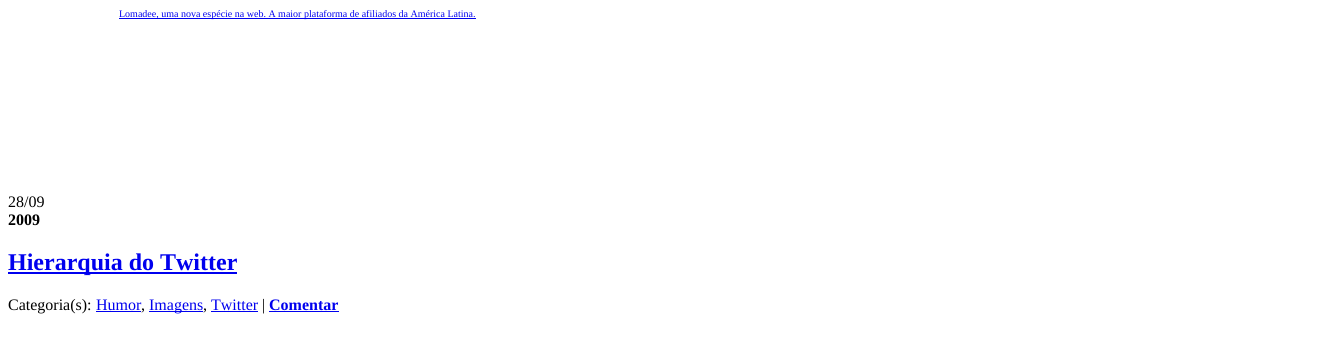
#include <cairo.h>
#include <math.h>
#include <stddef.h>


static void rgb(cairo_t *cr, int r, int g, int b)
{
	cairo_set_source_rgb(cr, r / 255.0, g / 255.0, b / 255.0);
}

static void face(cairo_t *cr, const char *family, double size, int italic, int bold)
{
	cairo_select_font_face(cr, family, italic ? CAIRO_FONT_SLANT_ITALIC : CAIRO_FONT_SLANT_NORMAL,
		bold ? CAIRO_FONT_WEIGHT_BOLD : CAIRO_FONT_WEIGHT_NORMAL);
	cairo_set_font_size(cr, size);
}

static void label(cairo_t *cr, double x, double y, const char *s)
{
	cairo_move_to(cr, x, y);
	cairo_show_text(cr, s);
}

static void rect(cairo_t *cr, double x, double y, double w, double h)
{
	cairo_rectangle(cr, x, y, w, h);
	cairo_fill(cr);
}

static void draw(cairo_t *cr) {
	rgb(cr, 255, 255, 255);
	cairo_paint(cr);
	rgb(cr, 0, 0, 238);
	rect(cr, 119, 18, 357, 1);
	face(cr, "Liberation Serif", 10, 0, 0);
	label(cr, 119, 17, "Lomadee, uma nova espécie na web. A maior plataforma de afiliados da América Latina.");
	face(cr, "Liberation Serif", 16, 0, 0);
	rgb(cr, 0, 0, 0);
	label(cr, 8, 207, "28/09");
	face(cr, "Liberation Serif", 16, 0, 1);
	label(cr, 8, 225, "2009");
	rgb(cr, 0, 0, 238);
	rect(cr, 8, 272, 229, 2);
	face(cr, "Liberation Serif", 24, 0, 1);
	label(cr, 8, 270, "Hierarquia do Twitter");
	face(cr, "Liberation Serif", 16, 0, 0);
	rgb(cr, 0, 0, 0);
	label(cr, 8, 310, "Categoria(s):");
	rgb(cr, 0, 0, 238);
	label(cr, 96, 310, "Humor");
	rgb(cr, 0, 0, 0);
	label(cr, 141, 310, ",");
	rgb(cr, 0, 0, 238);
	rect(cr, 96, 311, 45, 1);
	rect(cr, 149, 311, 54, 1);
	label(cr, 149, 310, "Imagens");
	rgb(cr, 0, 0, 0);
	label(cr, 203, 310, ",");
	rgb(cr, 0, 0, 238);
	rect(cr, 211, 311, 47, 1);
	label(cr, 211, 310, "Twitter");
	rgb(cr, 0, 0, 0);
	label(cr, 262, 310, "|");
	face(cr, "Liberation Serif", 16, 0, 1);
	rgb(cr, 0, 0, 238);
	label(cr, 269, 310, "Comentar");
	rect(cr, 269, 311, 70, 1);
}

int main(void) {
	cairo_surface_t *surface = cairo_image_surface_create(CAIRO_FORMAT_RGB24, 1317, 364);
	cairo_t *cr = cairo_create(surface);
	cairo_font_options_t *options = cairo_font_options_create();
	cairo_font_options_set_hint_metrics(options, CAIRO_HINT_METRICS_OFF);
	cairo_font_options_set_hint_style(options, CAIRO_HINT_STYLE_NONE);
	cairo_set_font_options(cr, options);
	cairo_set_miter_limit(cr, 4);
	draw(cr);
	cairo_surface_write_to_png(surface, "render.png");
	cairo_font_options_destroy(options);
	cairo_destroy(cr);
	cairo_surface_destroy(surface);
	return 0;
}
